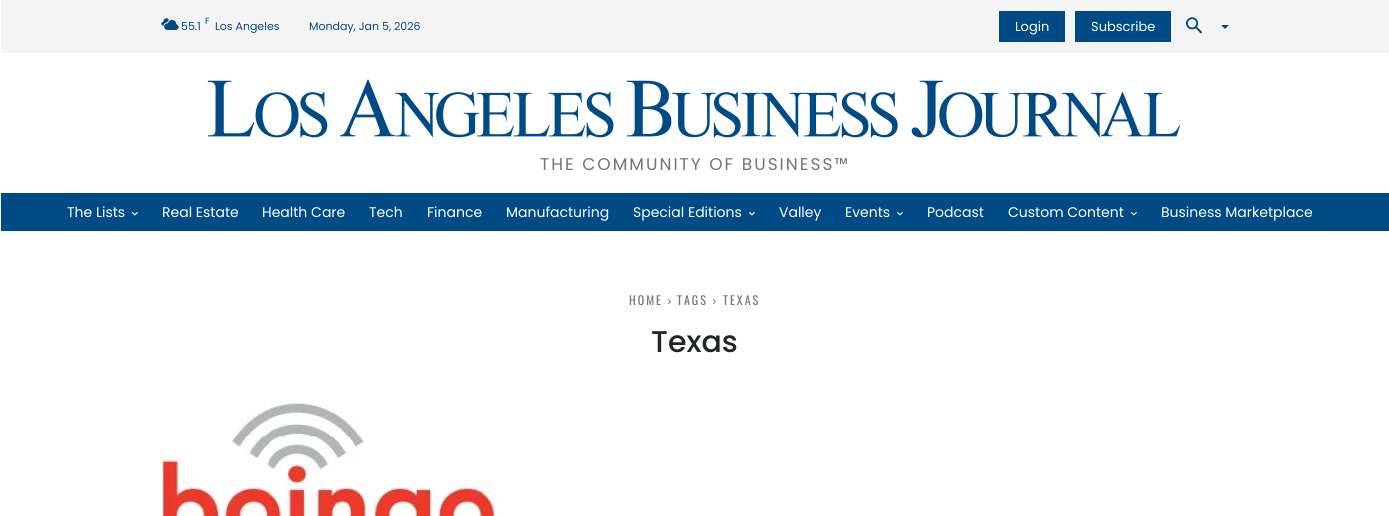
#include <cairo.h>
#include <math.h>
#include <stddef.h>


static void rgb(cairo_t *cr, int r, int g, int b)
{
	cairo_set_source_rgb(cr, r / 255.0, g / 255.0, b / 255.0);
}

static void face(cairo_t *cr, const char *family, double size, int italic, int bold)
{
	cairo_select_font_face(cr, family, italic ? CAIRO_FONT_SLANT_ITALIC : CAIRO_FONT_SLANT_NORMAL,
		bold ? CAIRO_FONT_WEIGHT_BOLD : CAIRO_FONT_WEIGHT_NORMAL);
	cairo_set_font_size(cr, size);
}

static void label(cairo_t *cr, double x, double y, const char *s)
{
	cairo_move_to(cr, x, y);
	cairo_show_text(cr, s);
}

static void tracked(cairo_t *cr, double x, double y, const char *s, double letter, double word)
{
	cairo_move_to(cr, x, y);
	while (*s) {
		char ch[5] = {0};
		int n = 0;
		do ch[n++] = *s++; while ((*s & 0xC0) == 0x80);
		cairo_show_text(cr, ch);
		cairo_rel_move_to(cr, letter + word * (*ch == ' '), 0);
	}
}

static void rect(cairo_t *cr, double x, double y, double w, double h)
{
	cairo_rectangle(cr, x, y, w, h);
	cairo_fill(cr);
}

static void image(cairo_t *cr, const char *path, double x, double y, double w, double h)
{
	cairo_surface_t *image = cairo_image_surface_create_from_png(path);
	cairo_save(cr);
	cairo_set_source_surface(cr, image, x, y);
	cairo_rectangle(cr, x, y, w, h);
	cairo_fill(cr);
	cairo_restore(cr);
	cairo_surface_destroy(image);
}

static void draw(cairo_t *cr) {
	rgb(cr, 255, 255, 255);
	cairo_paint(cr);
	rgb(cr, 244, 244, 244);
	rect(cr, 1, 0, 1388, 53);
	image(cr, "image0.png", 161, 18, 18, 12);
	face(cr, "Poppins", 9, 0, 0);
	rgb(cr, 0, 75, 133);
	label(cr, 205, 24, "F");
	face(cr, "Poppins", 11, 0, 0);
	label(cr, 181, 30, "55.1");
	label(cr, 215, 30, "Los Angeles");
	label(cr, 309, 30, "Monday, Jan 5, 2026");
	rect(cr, 999, 11, 66, 31);
	face(cr, "Poppins", 13, 0, 0);
	rgb(cr, 255, 255, 255);
	label(cr, 1015, 31, "Login");
	rgb(cr, 0, 75, 133);
	rect(cr, 1075, 11, 96, 31);
	rgb(cr, 255, 255, 255);
	label(cr, 1091, 31, "Subscribe");
	image(cr, "image1.png", 1186, 17, 16, 17);
	rgb(cr, 0, 75, 133);
	cairo_new_path(cr);
	cairo_move_to(cr, 1221, 25);
	cairo_line_to(cr, 1229, 25);
	cairo_line_to(cr, 1225, 29);
	cairo_close_path(cr);
	cairo_fill(cr);
	image(cr, "image2.png", 207, 79, 973, 59);
	face(cr, "Poppins", 17, 0, 0);
	rgb(cr, 116, 116, 116);
	tracked(cr, 540, 170, "THE COMMUNITY OF BUSINESS™", 2, 0);
	rgb(cr, 0, 75, 133);
	rect(cr, 1, 193, 1388, 38);
	face(cr, "Poppins", 14, 0, 0);
	rgb(cr, 255, 255, 255);
	label(cr, 67, 217, "The Lists");
	image(cr, "image3.png", 132, 212, 6, 4);
	label(cr, 162, 217, "Real Estate");
	label(cr, 262, 217, "Health Care");
	label(cr, 369, 217, "Tech");
	label(cr, 427, 217, "Finance");
	label(cr, 506, 217, "Manufacturing");
	label(cr, 633, 217, "Special Editions");
	image(cr, "image3.png", 749, 212, 6, 4);
	label(cr, 779, 217, "Valley");
	label(cr, 845, 217, "Events");
	image(cr, "image3.png", 897, 212, 6, 4);
	label(cr, 927, 217, "Podcast");
	label(cr, 1008, 217, "Custom Content");
	image(cr, "image3.png", 1131, 212, 6, 4);
	label(cr, 1161, 217, "Business Marketplace");
	face(cr, "Oswald", 12, 0, 0);
	rgb(cr, 116, 116, 116);
	tracked(cr, 629, 305, "HOME", 2, 0);
	image(cr, "image4.png", 668, 299, 3, 5);
	tracked(cr, 677, 305, "TAGS", 2, 0);
	image(cr, "image4.png", 713, 299, 3, 5);
	tracked(cr, 723, 305, "TEXAS", 2, 0);
	face(cr, "Poppins Medium", 30, 0, 0);
	rgb(cr, 33, 37, 41);
	label(cr, 651, 352, "Texas");
	image(cr, "image5.png", 161, 395, 336, 121);
}

int main(void) {
	cairo_surface_t *surface = cairo_image_surface_create(CAIRO_FORMAT_RGB24, 1389, 516);
	cairo_t *cr = cairo_create(surface);
	cairo_font_options_t *options = cairo_font_options_create();
	cairo_font_options_set_hint_metrics(options, CAIRO_HINT_METRICS_OFF);
	cairo_font_options_set_hint_style(options, CAIRO_HINT_STYLE_NONE);
	cairo_set_font_options(cr, options);
	cairo_set_miter_limit(cr, 4);
	draw(cr);
	cairo_surface_write_to_png(surface, "render.png");
	cairo_font_options_destroy(options);
	cairo_destroy(cr);
	cairo_surface_destroy(surface);
	return 0;
}
